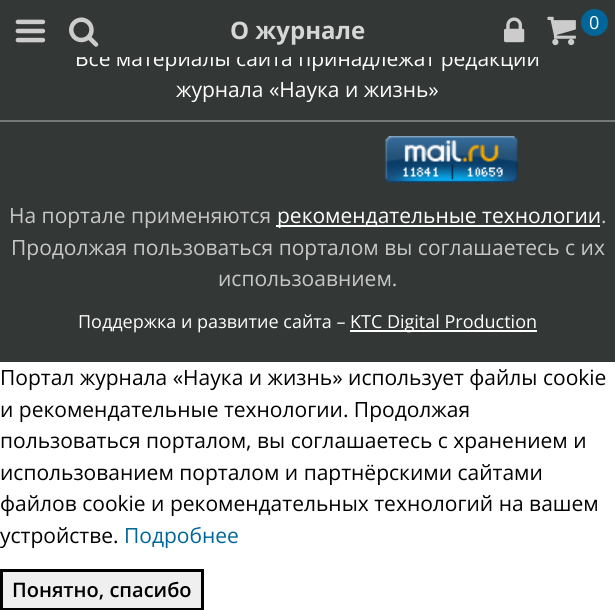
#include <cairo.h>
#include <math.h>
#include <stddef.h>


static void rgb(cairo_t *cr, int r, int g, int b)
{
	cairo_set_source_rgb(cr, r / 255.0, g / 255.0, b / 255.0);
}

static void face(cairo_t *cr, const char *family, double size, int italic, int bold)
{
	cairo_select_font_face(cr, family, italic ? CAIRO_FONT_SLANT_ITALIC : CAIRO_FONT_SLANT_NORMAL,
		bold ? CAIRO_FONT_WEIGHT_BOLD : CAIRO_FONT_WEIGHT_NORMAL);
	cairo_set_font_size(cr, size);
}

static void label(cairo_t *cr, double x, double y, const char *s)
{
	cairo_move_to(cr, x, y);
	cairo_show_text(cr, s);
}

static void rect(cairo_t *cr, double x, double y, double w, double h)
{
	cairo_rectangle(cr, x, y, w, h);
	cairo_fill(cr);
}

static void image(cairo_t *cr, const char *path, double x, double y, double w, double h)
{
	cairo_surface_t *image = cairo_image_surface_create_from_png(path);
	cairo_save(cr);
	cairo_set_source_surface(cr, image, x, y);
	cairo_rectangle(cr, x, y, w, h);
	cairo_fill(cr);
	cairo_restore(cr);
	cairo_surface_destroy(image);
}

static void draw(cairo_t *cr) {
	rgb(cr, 255, 255, 255);
	cairo_paint(cr);
	rgb(cr, 51, 55, 53);
	rect(cr, 0, 57, 615, 305);
	face(cr, "Open Sans", 21, 0, 0);
	rgb(cr, 255, 255, 255);
	label(cr, 75, 66, "Все материалы сайта принадлежат редакции");
	rgb(cr, 51, 55, 53);
	rect(cr, 0, 0, 615, 57);
	image(cr, "image0.png", 15, 19, 31, 24);
	image(cr, "image1.png", 69, 17, 30, 30);
	face(cr, "Open Sans", 24, 0, 1);
	rgb(cr, 214, 214, 214);
	label(cr, 230, 39, "О журнале");
	image(cr, "image2.png", 504, 17, 21, 26);
	image(cr, "image3.png", 547, 16, 29, 30);
	rgb(cr, 0, 102, 153);
	cairo_arc(cr, 594.5, 22.5, 13.5, 0, 2 * M_PI);
	cairo_fill(cr);
	face(cr, "Open Sans", 18, 0, 0);
	rgb(cr, 255, 255, 255);
	label(cr, 589, 29, "0");
	face(cr, "Open Sans", 21, 0, 0);
	label(cr, 176, 97, "журнала «Наука и жизнь»");
	rgb(cr, 117, 120, 121);
	rect(cr, 0, 120, 615, 2);
	image(cr, "image4.png", 385, 136, 133, 47);
	rgb(cr, 199, 199, 199);
	label(cr, 9, 223, "На портале применяются");
	rgb(cr, 255, 255, 255);
	rect(cr, 276, 225, 324, 2);
	label(cr, 277, 223, "рекомендательные технологии");
	rgb(cr, 199, 199, 199);
	label(cr, 601, 223, ".");
	label(cr, 11, 255, "Продолжая пользоваться порталом вы соглашаетесь с их");
	label(cr, 218, 286, "использоавнием.");
	face(cr, "Open Sans", 18, 0, 0);
	rgb(cr, 255, 255, 255);
	label(cr, 78, 328, "Поддержка и развитие сайта –");
	rect(cr, 350, 330, 187, 2);
	label(cr, 350, 328, "KTC Digital Production");
	face(cr, "Open Sans", 21, 0, 0);
	rgb(cr, 0, 0, 0);
	label(cr, 0, 385, "Портал журнала «Наука и жизнь» использует файлы cookie");
	label(cr, 0, 417, "и рекомендательные технологии. Продолжая");
	label(cr, 0, 448, "пользоваться порталом, вы соглашаетесь с хранением и");
	label(cr, 0, 480, "использованием порталом и партнёрскими сайтами");
	label(cr, 0, 511, "файлов cookie и рекомендательных технологий на вашем");
	label(cr, 0, 543, "устройстве.");
	rgb(cr, 0, 102, 153);
	label(cr, 124, 543, "Подробнее");
	rgb(cr, 239, 239, 239);
	cairo_rectangle(cr, 1.5, 570.5, 201, 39);
	cairo_fill_preserve(cr);
	rgb(cr, 0, 0, 0);
	cairo_set_line_width(cr, 3);
	cairo_stroke(cr);
	face(cr, "Open Sans SemiBold", 20, 0, 0);
	label(cr, 12, 597, "Понятно, спасибо");
}

int main(void) {
	cairo_surface_t *surface = cairo_image_surface_create(CAIRO_FORMAT_RGB24, 615, 610);
	cairo_t *cr = cairo_create(surface);
	cairo_font_options_t *options = cairo_font_options_create();
	cairo_font_options_set_hint_metrics(options, CAIRO_HINT_METRICS_OFF);
	cairo_font_options_set_hint_style(options, CAIRO_HINT_STYLE_NONE);
	cairo_set_font_options(cr, options);
	cairo_set_miter_limit(cr, 4);
	draw(cr);
	cairo_surface_write_to_png(surface, "render.png");
	cairo_font_options_destroy(options);
	cairo_destroy(cr);
	cairo_surface_destroy(surface);
	return 0;
}
